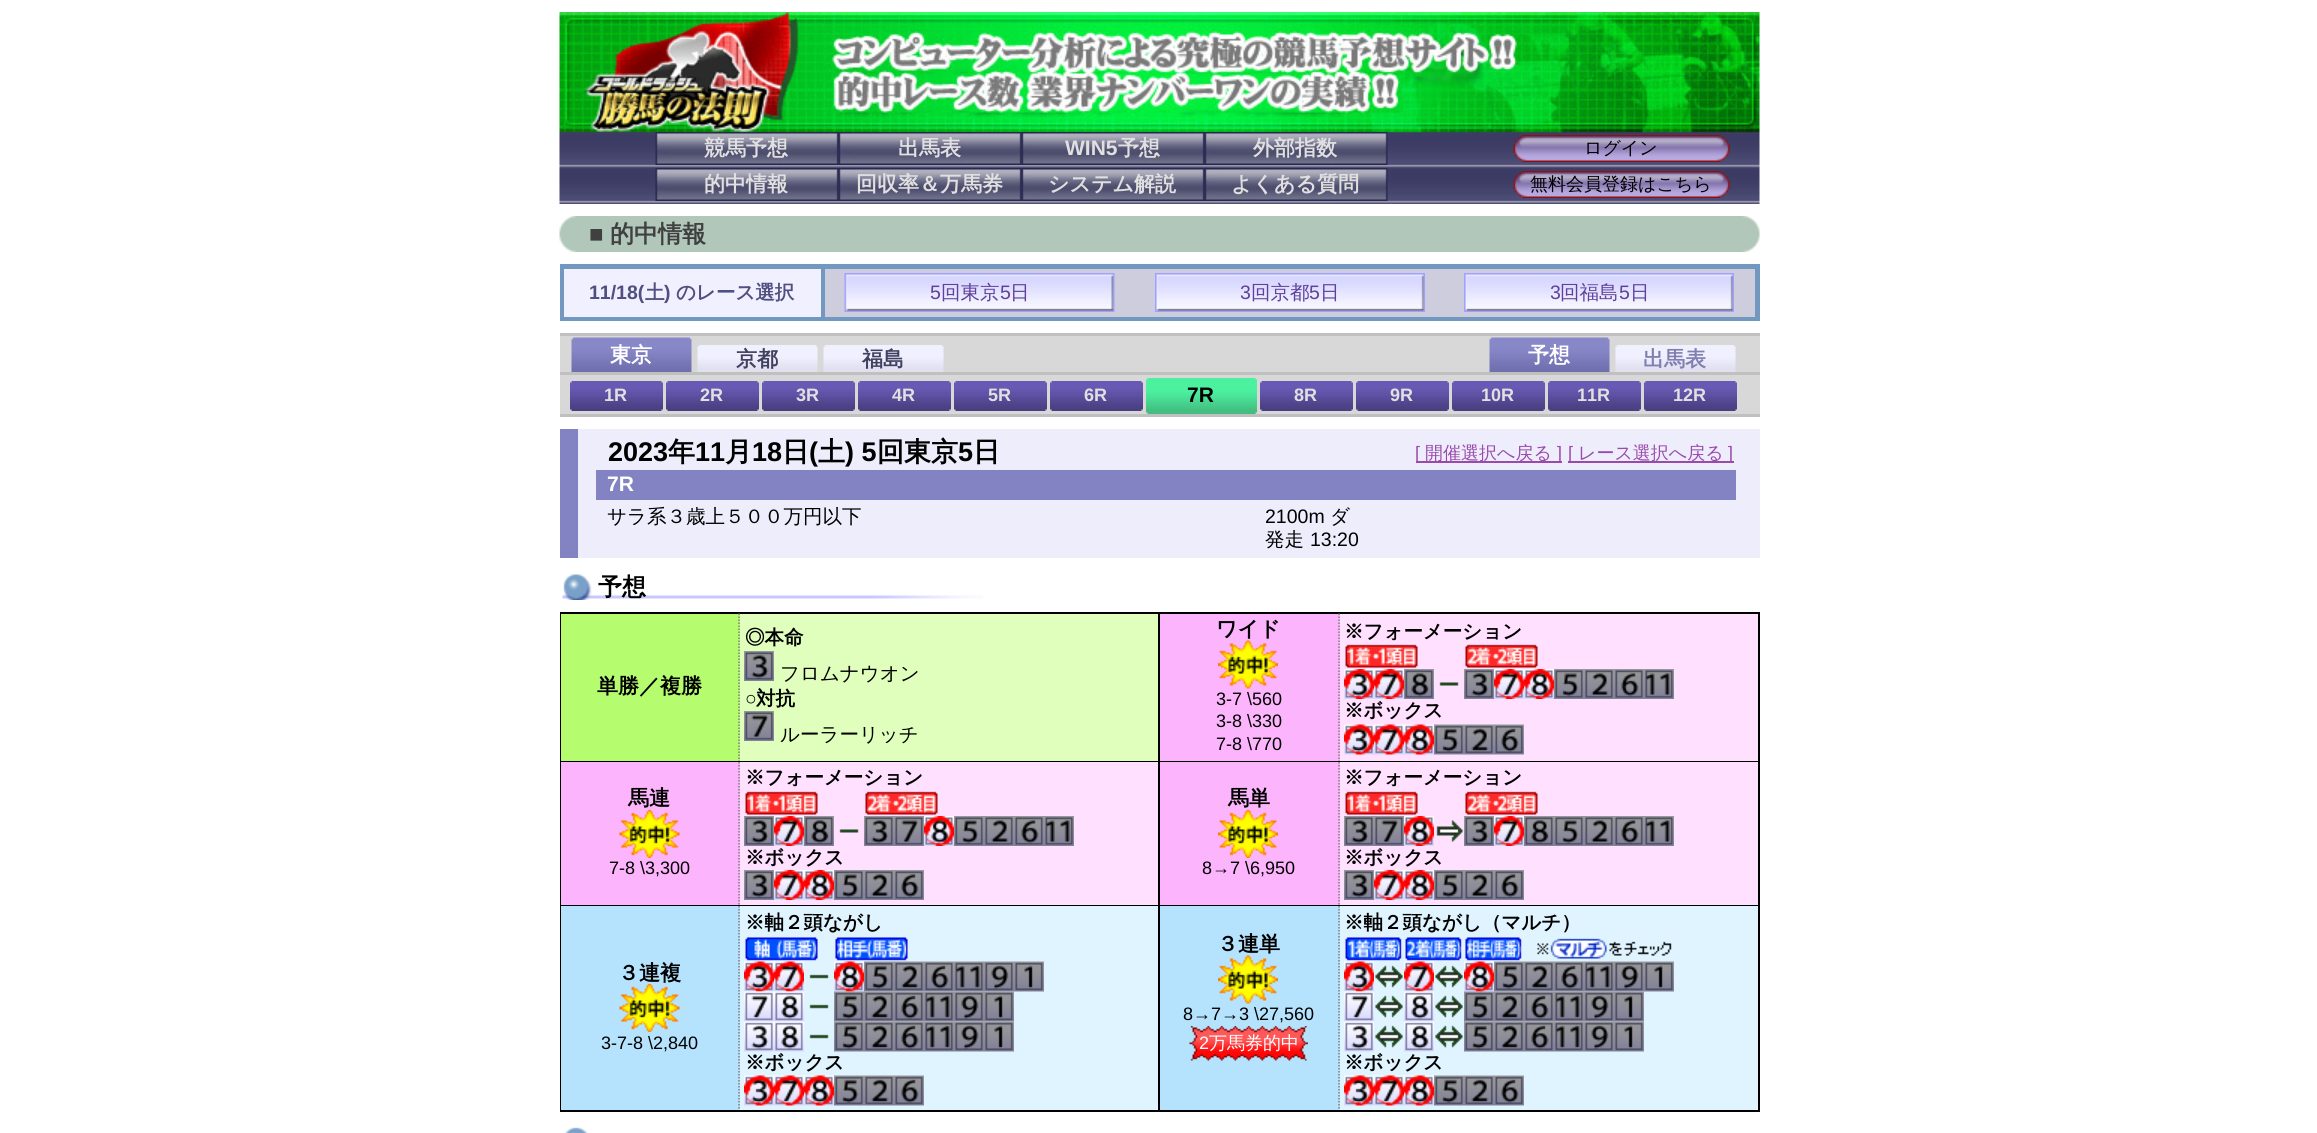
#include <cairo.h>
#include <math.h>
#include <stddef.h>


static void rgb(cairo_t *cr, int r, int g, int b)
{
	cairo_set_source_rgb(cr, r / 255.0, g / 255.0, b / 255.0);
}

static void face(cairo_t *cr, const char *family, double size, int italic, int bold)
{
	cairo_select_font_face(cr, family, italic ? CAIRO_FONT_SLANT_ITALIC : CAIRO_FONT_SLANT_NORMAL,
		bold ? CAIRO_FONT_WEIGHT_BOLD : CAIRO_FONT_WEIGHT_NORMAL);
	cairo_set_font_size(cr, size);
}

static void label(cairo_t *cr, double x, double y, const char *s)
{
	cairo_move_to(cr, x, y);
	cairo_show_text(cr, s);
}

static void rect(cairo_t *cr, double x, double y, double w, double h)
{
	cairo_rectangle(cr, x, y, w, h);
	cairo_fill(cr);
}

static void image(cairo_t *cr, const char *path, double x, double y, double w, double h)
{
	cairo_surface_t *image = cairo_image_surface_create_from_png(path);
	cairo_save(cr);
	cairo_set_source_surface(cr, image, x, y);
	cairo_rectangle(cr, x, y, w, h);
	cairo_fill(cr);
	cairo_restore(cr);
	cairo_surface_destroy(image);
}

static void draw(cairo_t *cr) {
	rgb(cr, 255, 255, 255);
	cairo_paint(cr);
	image(cr, "image0.png", 559, 12, 1201, 192);
	image(cr, "image1.png", 583, 12, 216, 120);
	image(cr, "image2.png", 655, 132, 184, 33);
	face(cr, "WenQuanYi Zen Hei", 21, 0, 1);
	rgb(cr, 224, 224, 224);
	label(cr, 704, 155, "競馬予想");
	image(cr, "image3.png", 838, 132, 184, 33);
	label(cr, 898, 155, "出馬表");
	image(cr, "image4.png", 1021, 132, 184, 33);
	face(cr, "Liberation Sans", 21, 0, 1);
	label(cr, 1065, 155, "WIN5");
	face(cr, "WenQuanYi Zen Hei", 21, 0, 1);
	label(cr, 1118, 155, "予想");
	image(cr, "image5.png", 1204, 132, 184, 33);
	label(cr, 1253, 155, "外部指数");
	image(cr, "image6.png", 655, 168, 184, 33);
	label(cr, 704, 191, "的中情報");
	image(cr, "image7.png", 838, 168, 184, 33);
	label(cr, 856, 191, "回収率＆万馬券");
	image(cr, "image7.png", 1021, 168, 184, 33);
	label(cr, 1048, 191, "システム解説");
	image(cr, "image8.png", 1204, 168, 184, 33);
	label(cr, 1231, 191, "よくある質問");
	image(cr, "image9.png", 1513, 135, 217, 27);
	face(cr, "WenQuanYi Zen Hei Medium", 18, 0, 0);
	rgb(cr, 0, 0, 0);
	label(cr, 1584, 154, "ログイン");
	image(cr, "image9.png", 1513, 171, 217, 27);
	label(cr, 1530, 190, "無料会員登録はこちら");
	image(cr, "image10.png", 559, 216, 1201, 36);
	face(cr, "Liberation Sans", 24, 0, 1);
	rgb(cr, 64, 64, 64);
	label(cr, 589, 242, "■");
	face(cr, "WenQuanYi Zen Hei", 24, 0, 1);
	label(cr, 610, 242, "的中情報");
	rgb(cr, 114, 152, 191);
	rect(cr, 560, 264, 1200, 3);
	rect(cr, 1755, 264, 5, 57);
	rect(cr, 560, 318, 1200, 3);
	rect(cr, 560, 264, 5, 57);
	rgb(cr, 240, 240, 255);
	rect(cr, 564, 269, 257, 48);
	rgb(cr, 114, 152, 191);
	rect(cr, 564, 267, 1191, 2);
	rect(cr, 821, 267, 4, 51);
	rect(cr, 564, 317, 1191, 1);
	face(cr, "Liberation Sans", 19.5, 0, 1);
	rgb(cr, 80, 80, 128);
	label(cr, 589, 299, "11/18(");
	face(cr, "WenQuanYi Zen Hei", 19.5, 0, 1);
	label(cr, 645, 299, "土");
	face(cr, "Liberation Sans", 19.5, 0, 1);
	label(cr, 664, 299, ")");
	face(cr, "WenQuanYi Zen Hei", 19.5, 0, 1);
	label(cr, 676, 299, "のレース選択");
	rgb(cr, 205, 205, 221);
	rect(cr, 825, 269, 930, 48);
	image(cr, "image11.png", 844, 273, 271, 39);
	face(cr, "Liberation Sans", 19.5, 0, 0);
	rgb(cr, 96, 64, 154);
	label(cr, 930, 299, "5");
	face(cr, "WenQuanYi Zen Hei Medium", 19.5, 0, 0);
	label(cr, 941, 299, "回東京");
	face(cr, "Liberation Sans", 19.5, 0, 0);
	label(cr, 1000, 299, "5");
	face(cr, "WenQuanYi Zen Hei Medium", 19.5, 0, 0);
	label(cr, 1010, 299, "日");
	image(cr, "image12.png", 1155, 273, 270, 39);
	face(cr, "Liberation Sans", 19.5, 0, 0);
	label(cr, 1240, 299, "3");
	face(cr, "WenQuanYi Zen Hei Medium", 19.5, 0, 0);
	label(cr, 1251, 299, "回京都");
	face(cr, "Liberation Sans", 19.5, 0, 0);
	label(cr, 1309, 299, "5");
	face(cr, "WenQuanYi Zen Hei Medium", 19.5, 0, 0);
	label(cr, 1320, 299, "日");
	image(cr, "image12.png", 1464, 273, 270, 39);
	face(cr, "Liberation Sans", 19.5, 0, 0);
	label(cr, 1550, 299, "3");
	face(cr, "WenQuanYi Zen Hei Medium", 19.5, 0, 0);
	label(cr, 1560, 299, "回福島");
	face(cr, "Liberation Sans", 19.5, 0, 0);
	label(cr, 1619, 299, "5");
	face(cr, "WenQuanYi Zen Hei Medium", 19.5, 0, 0);
	label(cr, 1630, 299, "日");
	rgb(cr, 216, 216, 216);
	rect(cr, 560, 336, 1200, 36);
	rgb(cr, 192, 192, 192);
	rect(cr, 560, 333, 1200, 3);
	image(cr, "image13.png", 571, 337, 121, 35);
	face(cr, "WenQuanYi Zen Hei", 21, 0, 1);
	rgb(cr, 255, 255, 255);
	label(cr, 610, 362, "東京");
	image(cr, "image14.png", 697, 345, 121, 27);
	rgb(cr, 64, 64, 96);
	label(cr, 736, 366, "京都");
	image(cr, "image14.png", 823, 345, 121, 27);
	label(cr, 862, 366, "福島");
	image(cr, "image13.png", 1489, 337, 121, 35);
	rgb(cr, 255, 255, 255);
	label(cr, 1528, 362, "予想");
	image(cr, "image14.png", 1615, 345, 121, 27);
	rgb(cr, 128, 128, 176);
	label(cr, 1643, 366, "出馬表");
	rgb(cr, 216, 216, 216);
	rect(cr, 560, 375, 1200, 39);
	rgb(cr, 192, 192, 192);
	rect(cr, 560, 372, 1200, 3);
	rect(cr, 560, 414, 1200, 3);
	image(cr, "image15.png", 570, 381, 93, 30);
	face(cr, "Liberation Sans", 18, 0, 1);
	rgb(cr, 224, 224, 224);
	label(cr, 604, 401, "1R");
	image(cr, "image16.png", 666, 381, 93, 30);
	label(cr, 700, 401, "2R");
	image(cr, "image16.png", 762, 381, 93, 30);
	label(cr, 796, 401, "3R");
	image(cr, "image16.png", 858, 381, 93, 30);
	label(cr, 892, 401, "4R");
	image(cr, "image16.png", 954, 381, 93, 30);
	label(cr, 988, 401, "5R");
	image(cr, "image15.png", 1050, 381, 93, 30);
	label(cr, 1084, 401, "6R");
	image(cr, "image17.png", 1146, 378, 111, 36);
	face(cr, "Liberation Sans", 21, 0, 1);
	rgb(cr, 0, 0, 0);
	label(cr, 1187, 402, "7R");
	image(cr, "image15.png", 1260, 381, 93, 30);
	face(cr, "Liberation Sans", 18, 0, 1);
	rgb(cr, 224, 224, 224);
	label(cr, 1294, 401, "8R");
	image(cr, "image15.png", 1356, 381, 93, 30);
	label(cr, 1390, 401, "9R");
	image(cr, "image18.png", 1452, 381, 93, 30);
	label(cr, 1481, 401, "10R");
	image(cr, "image16.png", 1548, 381, 93, 30);
	label(cr, 1577, 401, "11R");
	image(cr, "image16.png", 1644, 381, 93, 30);
	label(cr, 1673, 401, "12R");
	rgb(cr, 237, 237, 252);
	rect(cr, 578, 429, 1182, 129);
	rgb(cr, 131, 131, 195);
	rect(cr, 560, 429, 18, 129);
	face(cr, "Liberation Sans", 27, 0, 1);
	rgb(cr, 0, 0, 0);
	label(cr, 608, 461, "2023");
	face(cr, "WenQuanYi Zen Hei", 27, 0, 1);
	label(cr, 668, 461, "年");
	face(cr, "Liberation Sans", 27, 0, 1);
	label(cr, 695, 461, "11");
	face(cr, "WenQuanYi Zen Hei", 27, 0, 1);
	label(cr, 725, 461, "月");
	face(cr, "Liberation Sans", 27, 0, 1);
	label(cr, 752, 461, "18");
	face(cr, "WenQuanYi Zen Hei", 27, 0, 1);
	label(cr, 782, 461, "日");
	face(cr, "Liberation Sans", 27, 0, 1);
	label(cr, 809, 461, "(");
	face(cr, "WenQuanYi Zen Hei", 27, 0, 1);
	label(cr, 818, 461, "土");
	face(cr, "Liberation Sans", 27, 0, 1);
	label(cr, 845, 461, ") 5");
	face(cr, "WenQuanYi Zen Hei", 27, 0, 1);
	label(cr, 877, 461, "回東京");
	face(cr, "Liberation Sans", 27, 0, 1);
	label(cr, 958, 461, "5");
	face(cr, "WenQuanYi Zen Hei", 27, 0, 1);
	label(cr, 973, 461, "日");
	rgb(cr, 154, 74, 171);
	rect(cr, 1416, 461, 146, 2);
	face(cr, "Liberation Sans", 18, 0, 0);
	label(cr, 1415, 459, "[");
	face(cr, "WenQuanYi Zen Hei Medium", 18, 0, 0);
	label(cr, 1425, 459, "開催選択へ戻る");
	face(cr, "Liberation Sans", 18, 0, 0);
	label(cr, 1557, 459, "]");
	rect(cr, 1568, 461, 166, 2);
	label(cr, 1568, 459, "[");
	face(cr, "WenQuanYi Zen Hei Medium", 18, 0, 0);
	label(cr, 1578, 459, "レース選択へ戻る");
	face(cr, "Liberation Sans", 18, 0, 0);
	label(cr, 1728, 459, "]");
	rgb(cr, 131, 131, 195);
	rect(cr, 596, 470, 1140, 30);
	face(cr, "Liberation Sans", 21, 0, 1);
	rgb(cr, 255, 255, 255);
	label(cr, 607, 491, "7R");
	face(cr, "WenQuanYi Zen Hei Medium", 19.5, 0, 0);
	rgb(cr, 0, 0, 0);
	label(cr, 607, 523, "サラ系３歳上５００万円以下");
	face(cr, "Liberation Sans", 19.5, 0, 0);
	label(cr, 1265, 523, "2100m");
	face(cr, "WenQuanYi Zen Hei Medium", 19.5, 0, 0);
	label(cr, 1330, 523, "ダ");
	label(cr, 1265, 546, "発走");
	face(cr, "Liberation Sans", 19.5, 0, 0);
	label(cr, 1310, 546, "13:20");
	image(cr, "image19.png", 562, 574, 421, 26);
	face(cr, "WenQuanYi Zen Hei", 24, 0, 1);
	label(cr, 598, 595, "予想");
	rect(cr, 560, 612, 1200, 2);
	rect(cr, 560, 612, 2, 500);
	rgb(cr, 181, 252, 111);
	rect(cr, 561, 614, 179, 147);
	cairo_new_path(cr);
	cairo_move_to(cr, 739, 613.5);
	cairo_line_to(cr, 739, 762);
	rgb(cr, 128, 128, 128);
	cairo_set_line_width(cr, 1.5);
	cairo_set_dash(cr, (double[]){1.5, 1.5}, 2, 0);
	cairo_stroke(cr);
	rgb(cr, 0, 0, 0);
	rect(cr, 561, 761, 179, 1);
	face(cr, "WenQuanYi Zen Hei", 21, 0, 1);
	label(cr, 597, 693, "単勝／複勝");
	rgb(cr, 224, 255, 189);
	rect(cr, 740, 614, 418, 147);
	rgb(cr, 0, 0, 0);
	rect(cr, 1158, 614, 2, 498);
	rect(cr, 740, 761, 420, 1);
	face(cr, "WenQuanYi Zen Hei", 19.5, 0, 1);
	label(cr, 745, 644, "◎本命");
	image(cr, "image20.png", 744, 651, 30, 30);
	face(cr, "WenQuanYi Zen Hei Medium", 19.5, 0, 0);
	label(cr, 780, 680, "フロムナウオン");
	face(cr, "Liberation Sans", 19.5, 0, 1);
	label(cr, 745, 705, "○");
	face(cr, "WenQuanYi Zen Hei", 19.5, 0, 1);
	label(cr, 756, 705, "対抗");
	image(cr, "image21.png", 744, 711, 30, 30);
	face(cr, "WenQuanYi Zen Hei Medium", 19.5, 0, 0);
	label(cr, 780, 741, "ルーラーリッチ");
	rgb(cr, 252, 181, 252);
	rect(cr, 1160, 614, 180, 147);
	cairo_new_path(cr);
	cairo_move_to(cr, 1339, 613.5);
	cairo_line_to(cr, 1339, 762);
	rgb(cr, 128, 128, 128);
	cairo_stroke(cr);
	rgb(cr, 0, 0, 0);
	rect(cr, 1160, 761, 180, 1);
	face(cr, "WenQuanYi Zen Hei", 21, 0, 1);
	label(cr, 1216, 636, "ワイド");
	image(cr, "image22.png", 1218, 640, 60, 49);
	face(cr, "Liberation Sans", 18, 0, 0);
	label(cr, 1216, 705, "3-7 \\560");
	label(cr, 1216, 727, "3-8 \\330");
	label(cr, 1216, 750, "7-8 \\770");
	rgb(cr, 255, 224, 255);
	rect(cr, 1340, 614, 418, 147);
	rgb(cr, 0, 0, 0);
	rect(cr, 1758, 614, 2, 498);
	rect(cr, 1340, 761, 420, 1);
	face(cr, "WenQuanYi Zen Hei", 19.5, 0, 1);
	label(cr, 1344, 638, "※フォーメーション");
	image(cr, "image23.png", 1345, 644, 193, 24);
	image(cr, "image24.png", 1344, 669, 30, 30);
	image(cr, "image25.png", 1374, 669, 30, 30);
	image(cr, "image26.png", 1404, 669, 30, 30);
	image(cr, "image27.png", 1439, 682, 20, 4);
	image(cr, "image20.png", 1464, 669, 30, 30);
	image(cr, "image28.png", 1494, 669, 30, 30);
	image(cr, "image29.png", 1524, 669, 30, 30);
	image(cr, "image30.png", 1554, 669, 30, 30);
	image(cr, "image31.png", 1584, 669, 30, 30);
	image(cr, "image32.png", 1614, 669, 30, 30);
	image(cr, "image33.png", 1644, 669, 30, 30);
	label(cr, 1344, 717, "※ボックス");
	image(cr, "image34.png", 1344, 724, 30, 31);
	image(cr, "image35.png", 1374, 724, 30, 31);
	image(cr, "image36.png", 1404, 724, 30, 31);
	image(cr, "image37.png", 1434, 724, 30, 31);
	image(cr, "image38.png", 1464, 724, 30, 31);
	image(cr, "image39.png", 1494, 724, 30, 31);
	rgb(cr, 252, 181, 252);
	rect(cr, 561, 762, 179, 143);
	cairo_new_path(cr);
	cairo_move_to(cr, 739, 762);
	cairo_line_to(cr, 739, 906);
	rgb(cr, 128, 128, 128);
	cairo_stroke(cr);
	rgb(cr, 0, 0, 0);
	rect(cr, 561, 905, 1199, 1);
	face(cr, "WenQuanYi Zen Hei", 21, 0, 1);
	label(cr, 628, 805, "馬連");
	image(cr, "image40.png", 619, 810, 61, 48);
	face(cr, "Liberation Sans", 18, 0, 0);
	label(cr, 609, 874, "7-8 \\3,300");
	rgb(cr, 255, 224, 255);
	rect(cr, 740, 762, 418, 143);
	face(cr, "WenQuanYi Zen Hei", 19.5, 0, 1);
	rgb(cr, 0, 0, 0);
	label(cr, 745, 784, "※フォーメーション");
	image(cr, "image41.png", 745, 791, 193, 24);
	image(cr, "image20.png", 744, 816, 30, 30);
	image(cr, "image25.png", 774, 816, 30, 30);
	image(cr, "image26.png", 804, 816, 30, 30);
	image(cr, "image27.png", 839, 829, 20, 4);
	image(cr, "image42.png", 864, 816, 30, 30);
	image(cr, "image43.png", 894, 816, 30, 30);
	image(cr, "image29.png", 924, 816, 30, 30);
	image(cr, "image30.png", 954, 816, 30, 30);
	image(cr, "image31.png", 984, 816, 30, 30);
	image(cr, "image32.png", 1014, 816, 30, 30);
	image(cr, "image44.png", 1044, 816, 30, 30);
	label(cr, 745, 864, "※ボックス");
	image(cr, "image20.png", 744, 870, 30, 30);
	image(cr, "image25.png", 774, 870, 30, 30);
	image(cr, "image29.png", 804, 870, 30, 30);
	image(cr, "image30.png", 834, 870, 30, 30);
	image(cr, "image31.png", 864, 870, 30, 30);
	image(cr, "image32.png", 894, 870, 30, 30);
	rgb(cr, 252, 181, 252);
	rect(cr, 1160, 762, 180, 143);
	cairo_new_path(cr);
	cairo_move_to(cr, 1339, 762);
	cairo_line_to(cr, 1339, 906);
	rgb(cr, 128, 128, 128);
	cairo_stroke(cr);
	face(cr, "WenQuanYi Zen Hei", 21, 0, 1);
	rgb(cr, 0, 0, 0);
	label(cr, 1228, 805, "馬単");
	image(cr, "image45.png", 1218, 810, 60, 48);
	face(cr, "Liberation Sans", 18, 0, 0);
	label(cr, 1202, 874, "8→7 \\6,950");
	rgb(cr, 255, 224, 255);
	rect(cr, 1340, 762, 418, 143);
	face(cr, "WenQuanYi Zen Hei", 19.5, 0, 1);
	rgb(cr, 0, 0, 0);
	label(cr, 1344, 784, "※フォーメーション");
	image(cr, "image23.png", 1345, 791, 193, 24);
	image(cr, "image20.png", 1344, 816, 30, 30);
	image(cr, "image43.png", 1374, 816, 30, 30);
	image(cr, "image29.png", 1404, 816, 30, 30);
	image(cr, "image46.png", 1436, 820, 27, 22);
	image(cr, "image20.png", 1464, 816, 30, 30);
	image(cr, "image28.png", 1494, 816, 30, 30);
	image(cr, "image26.png", 1524, 816, 30, 30);
	image(cr, "image30.png", 1554, 816, 30, 30);
	image(cr, "image31.png", 1584, 816, 30, 30);
	image(cr, "image32.png", 1614, 816, 30, 30);
	image(cr, "image33.png", 1644, 816, 30, 30);
	label(cr, 1344, 864, "※ボックス");
	image(cr, "image20.png", 1344, 870, 30, 30);
	image(cr, "image25.png", 1374, 870, 30, 30);
	image(cr, "image29.png", 1404, 870, 30, 30);
	image(cr, "image30.png", 1434, 870, 30, 30);
	image(cr, "image47.png", 1464, 870, 30, 30);
	image(cr, "image48.png", 1494, 870, 30, 30);
	rgb(cr, 181, 226, 252);
	rect(cr, 561, 906, 179, 204);
	cairo_new_path(cr);
	cairo_move_to(cr, 739, 906);
	cairo_line_to(cr, 739, 1111.5);
	rgb(cr, 128, 128, 128);
	cairo_stroke(cr);
	rgb(cr, 0, 0, 0);
	rect(cr, 561, 1110, 599, 2);
	face(cr, "WenQuanYi Zen Hei", 21, 0, 1);
	label(cr, 618, 980, "３連複");
	image(cr, "image49.png", 619, 984, 61, 48);
	face(cr, "Liberation Sans", 18, 0, 0);
	label(cr, 601, 1049, "3-7-8 \\2,840");
	rgb(cr, 224, 244, 255);
	rect(cr, 740, 906, 418, 204);
	face(cr, "WenQuanYi Zen Hei", 19.5, 0, 1);
	rgb(cr, 0, 0, 0);
	label(cr, 745, 929, "※軸２頭ながし");
	image(cr, "image50.png", 745, 937, 163, 24);
	image(cr, "image51.png", 744, 961, 30, 31);
	image(cr, "image52.png", 774, 961, 30, 31);
	image(cr, "image53.png", 809, 974, 20, 5);
	image(cr, "image54.png", 834, 961, 30, 31);
	image(cr, "image55.png", 864, 961, 30, 31);
	image(cr, "image56.png", 894, 961, 30, 31);
	image(cr, "image57.png", 924, 961, 30, 31);
	image(cr, "image58.png", 954, 961, 30, 31);
	image(cr, "image59.png", 984, 961, 30, 31);
	image(cr, "image60.png", 1014, 961, 30, 31);
	image(cr, "image61.png", 744, 991, 30, 31);
	image(cr, "image62.png", 774, 991, 30, 31);
	image(cr, "image53.png", 809, 1004, 20, 5);
	image(cr, "image63.png", 834, 991, 30, 31);
	image(cr, "image64.png", 864, 991, 30, 31);
	image(cr, "image65.png", 894, 991, 30, 31);
	image(cr, "image66.png", 924, 991, 30, 31);
	image(cr, "image67.png", 954, 991, 30, 31);
	image(cr, "image68.png", 984, 991, 30, 31);
	image(cr, "image69.png", 744, 1021, 30, 31);
	image(cr, "image70.png", 774, 1021, 30, 31);
	image(cr, "image53.png", 809, 1034, 20, 5);
	image(cr, "image71.png", 834, 1021, 30, 31);
	image(cr, "image64.png", 864, 1021, 30, 31);
	image(cr, "image65.png", 894, 1021, 30, 31);
	image(cr, "image66.png", 924, 1021, 30, 31);
	image(cr, "image67.png", 954, 1021, 30, 31);
	image(cr, "image68.png", 984, 1021, 30, 31);
	label(cr, 745, 1069, "※ボックス");
	image(cr, "image51.png", 744, 1075, 30, 31);
	image(cr, "image52.png", 774, 1075, 30, 31);
	image(cr, "image54.png", 804, 1075, 30, 31);
	image(cr, "image55.png", 834, 1075, 30, 31);
	image(cr, "image56.png", 864, 1075, 30, 31);
	image(cr, "image57.png", 894, 1075, 30, 31);
	rgb(cr, 181, 226, 252);
	rect(cr, 1160, 906, 180, 204);
	cairo_new_path(cr);
	cairo_move_to(cr, 1339, 906);
	cairo_line_to(cr, 1339, 1111.5);
	rgb(cr, 128, 128, 128);
	cairo_stroke(cr);
	rgb(cr, 0, 0, 0);
	rect(cr, 1160, 1110, 600, 2);
	face(cr, "WenQuanYi Zen Hei", 21, 0, 1);
	label(cr, 1217, 951, "３連単");
	image(cr, "image72.png", 1218, 955, 60, 49);
	face(cr, "Liberation Sans", 18, 0, 0);
	label(cr, 1183, 1020, "8→7→3 \\27,560");
	image(cr, "image73.png", 1189, 1026, 119, 35);
	rgb(cr, 255, 255, 255);
	label(cr, 1199, 1049, "2");
	face(cr, "WenQuanYi Zen Hei Medium", 18, 0, 0);
	label(cr, 1209, 1049, "万馬券的中");
	rgb(cr, 224, 244, 255);
	rect(cr, 1340, 906, 418, 204);
	face(cr, "WenQuanYi Zen Hei", 19.5, 0, 1);
	rgb(cr, 0, 0, 0);
	label(cr, 1344, 929, "※軸２頭ながし（マルチ）");
	image(cr, "image74.png", 1345, 937, 327, 24);
	image(cr, "image51.png", 1344, 961, 30, 31);
	image(cr, "image75.png", 1375, 965, 28, 23);
	image(cr, "image52.png", 1404, 961, 30, 31);
	image(cr, "image75.png", 1435, 965, 28, 23);
	image(cr, "image76.png", 1464, 961, 30, 31);
	image(cr, "image77.png", 1494, 961, 30, 31);
	image(cr, "image56.png", 1524, 961, 30, 31);
	image(cr, "image57.png", 1554, 961, 30, 31);
	image(cr, "image58.png", 1584, 961, 30, 31);
	image(cr, "image59.png", 1614, 961, 30, 31);
	image(cr, "image60.png", 1644, 961, 30, 31);
	image(cr, "image61.png", 1344, 991, 30, 31);
	image(cr, "image75.png", 1375, 995, 28, 23);
	image(cr, "image62.png", 1404, 991, 30, 31);
	image(cr, "image75.png", 1435, 995, 28, 23);
	image(cr, "image78.png", 1464, 991, 30, 31);
	image(cr, "image79.png", 1494, 991, 30, 31);
	image(cr, "image65.png", 1524, 991, 30, 31);
	image(cr, "image66.png", 1554, 991, 30, 31);
	image(cr, "image67.png", 1584, 991, 30, 31);
	image(cr, "image68.png", 1614, 991, 30, 31);
	image(cr, "image69.png", 1344, 1021, 30, 31);
	image(cr, "image75.png", 1375, 1025, 28, 23);
	image(cr, "image70.png", 1404, 1021, 30, 31);
	image(cr, "image75.png", 1435, 1025, 28, 23);
	image(cr, "image80.png", 1464, 1021, 30, 31);
	image(cr, "image79.png", 1494, 1021, 30, 31);
	image(cr, "image65.png", 1524, 1021, 30, 31);
	image(cr, "image66.png", 1554, 1021, 30, 31);
	image(cr, "image67.png", 1584, 1021, 30, 31);
	image(cr, "image68.png", 1614, 1021, 30, 31);
	label(cr, 1344, 1069, "※ボックス");
	image(cr, "image51.png", 1344, 1075, 30, 31);
	image(cr, "image52.png", 1374, 1075, 30, 31);
	image(cr, "image54.png", 1404, 1075, 30, 31);
	image(cr, "image55.png", 1434, 1075, 30, 31);
	image(cr, "image81.png", 1464, 1075, 30, 31);
	image(cr, "image82.png", 1494, 1075, 30, 31);
	image(cr, "image83.png", 565, 1127, 23, 6);
}

int main(void) {
	cairo_surface_t *surface = cairo_image_surface_create(CAIRO_FORMAT_RGB24, 2317, 1133);
	cairo_t *cr = cairo_create(surface);
	cairo_font_options_t *options = cairo_font_options_create();
	cairo_font_options_set_hint_metrics(options, CAIRO_HINT_METRICS_OFF);
	cairo_font_options_set_hint_style(options, CAIRO_HINT_STYLE_NONE);
	cairo_set_font_options(cr, options);
	cairo_set_miter_limit(cr, 4);
	draw(cr);
	cairo_surface_write_to_png(surface, "render.png");
	cairo_font_options_destroy(options);
	cairo_destroy(cr);
	cairo_surface_destroy(surface);
	return 0;
}
